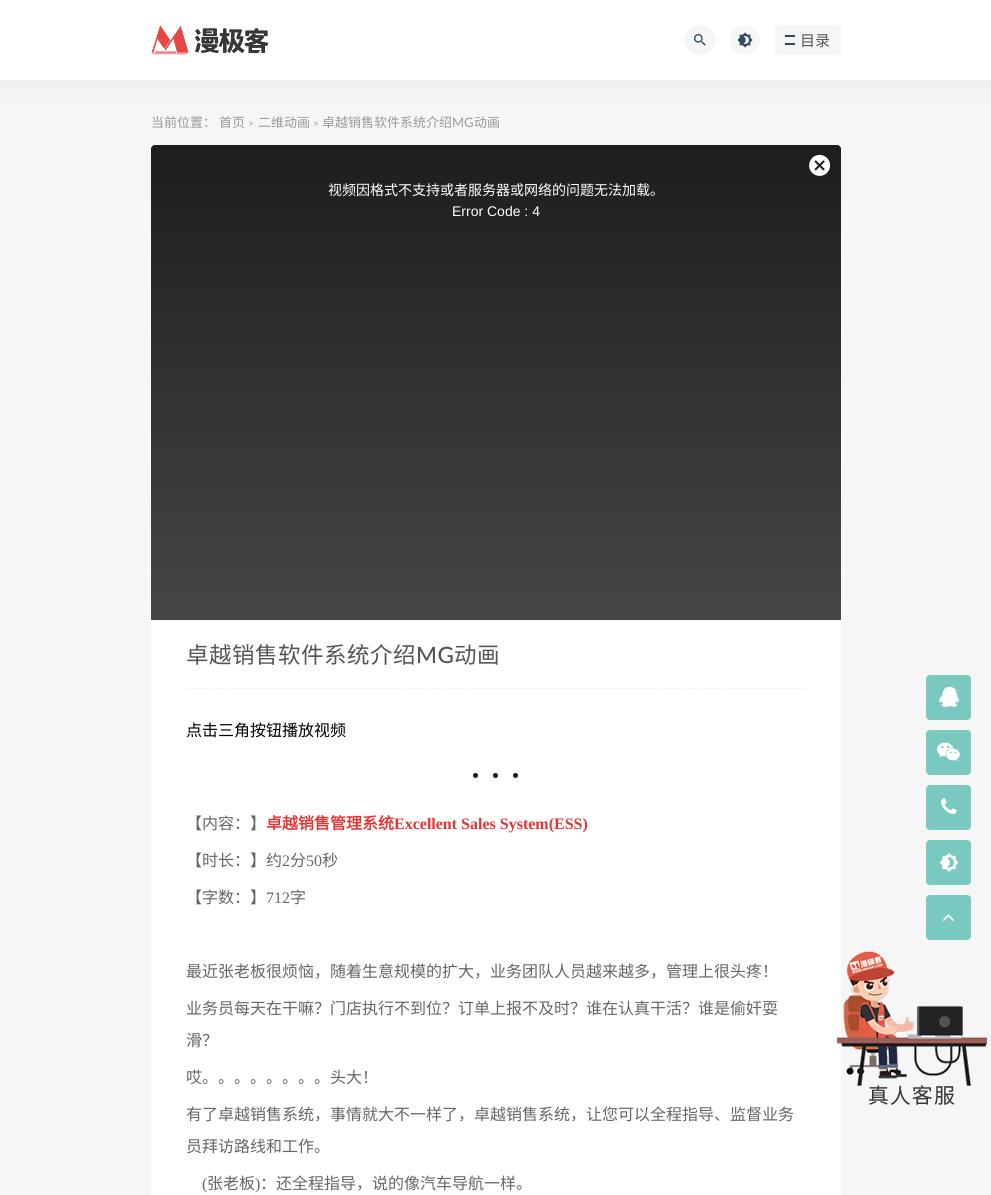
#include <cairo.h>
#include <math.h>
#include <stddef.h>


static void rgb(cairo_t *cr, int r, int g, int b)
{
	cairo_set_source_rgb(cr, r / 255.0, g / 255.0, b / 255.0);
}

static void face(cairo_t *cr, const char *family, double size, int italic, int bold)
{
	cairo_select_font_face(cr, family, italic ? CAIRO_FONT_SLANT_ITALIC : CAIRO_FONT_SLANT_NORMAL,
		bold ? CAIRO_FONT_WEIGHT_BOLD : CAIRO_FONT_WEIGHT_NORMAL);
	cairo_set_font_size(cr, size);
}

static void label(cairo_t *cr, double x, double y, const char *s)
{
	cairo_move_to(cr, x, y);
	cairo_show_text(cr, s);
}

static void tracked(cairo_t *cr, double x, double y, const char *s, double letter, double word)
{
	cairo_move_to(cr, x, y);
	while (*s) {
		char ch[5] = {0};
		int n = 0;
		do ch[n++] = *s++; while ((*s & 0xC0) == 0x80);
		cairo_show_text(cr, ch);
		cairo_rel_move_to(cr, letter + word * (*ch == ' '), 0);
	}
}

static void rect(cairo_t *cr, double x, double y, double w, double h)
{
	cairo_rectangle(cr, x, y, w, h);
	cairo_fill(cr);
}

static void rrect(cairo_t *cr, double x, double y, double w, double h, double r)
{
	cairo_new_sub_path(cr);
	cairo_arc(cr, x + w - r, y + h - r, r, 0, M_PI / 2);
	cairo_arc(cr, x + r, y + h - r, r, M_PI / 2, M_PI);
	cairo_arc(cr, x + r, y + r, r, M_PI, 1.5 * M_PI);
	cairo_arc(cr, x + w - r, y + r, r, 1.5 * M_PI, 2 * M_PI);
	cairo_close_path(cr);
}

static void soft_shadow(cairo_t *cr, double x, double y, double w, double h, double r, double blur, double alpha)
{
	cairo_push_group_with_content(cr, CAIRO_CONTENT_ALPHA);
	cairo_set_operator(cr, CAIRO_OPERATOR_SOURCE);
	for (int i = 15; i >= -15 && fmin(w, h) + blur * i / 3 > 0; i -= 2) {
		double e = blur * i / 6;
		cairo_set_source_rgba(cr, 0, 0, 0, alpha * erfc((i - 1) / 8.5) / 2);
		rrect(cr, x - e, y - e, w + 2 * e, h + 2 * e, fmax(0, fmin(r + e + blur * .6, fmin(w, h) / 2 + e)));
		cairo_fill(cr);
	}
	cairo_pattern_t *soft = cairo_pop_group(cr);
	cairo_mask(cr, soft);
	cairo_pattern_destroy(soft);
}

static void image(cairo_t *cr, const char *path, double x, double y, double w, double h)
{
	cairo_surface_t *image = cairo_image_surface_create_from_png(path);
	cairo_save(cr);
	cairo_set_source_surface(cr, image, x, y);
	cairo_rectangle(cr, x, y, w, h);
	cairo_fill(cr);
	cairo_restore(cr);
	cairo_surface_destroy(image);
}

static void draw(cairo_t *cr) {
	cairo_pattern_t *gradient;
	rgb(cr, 246, 246, 246);
	cairo_paint(cr);
	rgb(cr, 0, 0, 0);
	soft_shadow(cr, 0, 0, 991, 80, 0, 15, 0.07);
	rgb(cr, 255, 255, 255);
	rect(cr, 0, 0, 991, 80);
	image(cr, "image0.png", 151, 25, 118, 30);
	rgb(cr, 246, 246, 246);
	cairo_arc(cr, 700, 40, 15, 0, 2 * M_PI);
	cairo_fill(cr);
	image(cr, "image1.png", 694, 34, 12, 12);
	cairo_arc(cr, 745, 40, 15, 0, 2 * M_PI);
	cairo_fill(cr);
	image(cr, "image2.png", 737, 32, 16, 16);
	cairo_new_path(cr);
	cairo_move_to(cr, 782, 25);
	cairo_line_to(cr, 834, 25);
	cairo_curve_to(cr, 838, 25, 841, 26, 841, 28);
	cairo_line_to(cr, 841, 52);
	cairo_curve_to(cr, 841, 54, 838, 55, 834, 55);
	cairo_line_to(cr, 782, 55);
	cairo_curve_to(cr, 778, 55, 775, 54, 775, 52);
	cairo_line_to(cr, 775, 28);
	cairo_curve_to(cr, 775, 26, 778, 25, 782, 25);
	cairo_close_path(cr);
	cairo_fill(cr);
	rgb(cr, 52, 73, 94);
	rect(cr, 785, 35, 10, 2);
	face(cr, "Noto Sans CJK SC", 15, 0, 0);
	rgb(cr, 85, 85, 85);
	label(cr, 800, 46, "目录");
	rgb(cr, 52, 73, 94);
	rect(cr, 785, 43, 10, 2);
	face(cr, "Noto Sans CJK SC", 13, 0, 0);
	rgb(cr, 153, 153, 153);
	label(cr, 151, 127, "当前位置：");
	label(cr, 219, 127, "首页");
	face(cr, "Lato", 10, 0, 0);
	label(cr, 248, 127, ">");
	face(cr, "Noto Sans CJK SC", 13, 0, 0);
	label(cr, 258, 127, "二维动画");
	face(cr, "Lato", 10, 0, 0);
	label(cr, 313, 127, ">");
	face(cr, "Noto Sans CJK SC", 13, 0, 0);
	label(cr, 322, 127, "卓越销售软件系统介绍");
	face(cr, "Lato", 13, 0, 0);
	label(cr, 452, 127, "MG");
	face(cr, "Noto Sans CJK SC", 13, 0, 0);
	label(cr, 474, 127, "动画");
	rgb(cr, 255, 255, 255);
	rrect(cr, 151, 145, 690, 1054, 4);
	cairo_fill(cr);
	rgb(cr, 246, 246, 246);
	rect(cr, 151, 620, 690, 1);
	gradient = cairo_pattern_create_linear(496, 145, 496, 620);
	cairo_pattern_add_color_stop_rgba(gradient, 0, 0.2, 0.2, 0.2, 1);
	cairo_pattern_add_color_stop_rgba(gradient, 1, 1, 1, 1, 1);
	cairo_set_source(cr, gradient);
	cairo_pattern_destroy(gradient);
	cairo_new_path(cr);
	cairo_move_to(cr, 155, 145);
	cairo_line_to(cr, 837, 145);
	cairo_curve_to(cr, 839, 145, 841, 147, 841, 149);
	cairo_line_to(cr, 841, 620);
	cairo_line_to(cr, 151, 620);
	cairo_line_to(cr, 151, 149);
	cairo_curve_to(cr, 151, 147, 153, 145, 155, 145);
	cairo_close_path(cr);
	cairo_fill(cr);
	cairo_set_source_rgba(cr, 0.094, 0.094, 0.094, 0.8);
	cairo_new_path(cr);
	cairo_move_to(cr, 155, 145);
	cairo_line_to(cr, 837, 145);
	cairo_curve_to(cr, 839, 145, 841, 147, 841, 149);
	cairo_line_to(cr, 841, 620);
	cairo_line_to(cr, 151, 620);
	cairo_line_to(cr, 151, 149);
	cairo_curve_to(cr, 151, 147, 153, 145, 155, 145);
	cairo_close_path(cr);
	cairo_fill(cr);
	image(cr, "image3.png", 809, 154, 22, 22);
	face(cr, "Noto Sans CJK SC", 14, 0, 0);
	rgb(cr, 255, 255, 255);
	label(cr, 328, 195, "视频因格式不支持或者服务器或网络的问题无法加载。");
	face(cr, "Liberation Sans", 14, 0, 0);
	label(cr, 452, 216, "Error Code : 4");
	cairo_new_path(cr);
	cairo_move_to(cr, 186, 688.5);
	cairo_line_to(cr, 806, 688.5);
	rgb(cr, 238, 238, 238);
	cairo_set_line_width(cr, 1);
	cairo_set_dash(cr, (double[]){3, 2.02}, 2, 0);
	cairo_stroke(cr);
	face(cr, "Noto Sans CJK SC", 22.5, 0, 0);
	rgb(cr, 85, 85, 85);
	tracked(cr, 186, 663, "卓越销售软件系统介绍", 0.5, 0);
	face(cr, "Lato Medium", 22.5, 0, 0);
	tracked(cr, 416, 663, "MG", 0.5, 0);
	face(cr, "Noto Sans CJK SC", 22.5, 0, 0);
	tracked(cr, 454, 663, "动画", 0.5, 0);
	face(cr, "Noto Sans CJK SC", 16, 0, 0);
	rgb(cr, 0, 0, 0);
	label(cr, 186, 736, "点击三角按钮播放视频");
	rgb(cr, 26, 26, 26);
	cairo_new_path(cr);
	cairo_arc(cr, 495.5, 775.5, 2.5, 0, 2 * M_PI);
	cairo_fill(cr);
	cairo_arc(cr, 475.5, 775.5, 2.5, 0, 2 * M_PI);
	cairo_fill(cr);
	cairo_arc(cr, 515.5, 775.5, 2.5, 0, 2 * M_PI);
	cairo_fill(cr);
	rgb(cr, 102, 102, 102);
	label(cr, 186, 829, "【内容：】");
	face(cr, "Noto Sans CJK SC", 16, 0, 1);
	rgb(cr, 229, 51, 51);
	label(cr, 266, 829, "卓越销售管理系统");
	face(cr, "Liberation Serif", 16, 0, 1);
	label(cr, 394, 829, "Excellent Sales System(ESS)");
	face(cr, "Noto Sans CJK SC", 16, 0, 0);
	rgb(cr, 102, 102, 102);
	label(cr, 186, 866, "【时长：】约");
	face(cr, "Liberation Serif", 16, 0, 0);
	label(cr, 282, 866, "2");
	face(cr, "Noto Sans CJK SC", 16, 0, 0);
	label(cr, 290, 866, "分");
	face(cr, "Liberation Serif", 16, 0, 0);
	label(cr, 306, 866, "50");
	face(cr, "Noto Sans CJK SC", 16, 0, 0);
	label(cr, 322, 866, "秒");
	label(cr, 186, 903, "【字数：】");
	face(cr, "Liberation Serif", 16, 0, 0);
	label(cr, 266, 903, "712");
	face(cr, "Noto Sans CJK SC", 16, 0, 0);
	label(cr, 290, 903, "字");
	label(cr, 186, 977, "最近张老板很烦恼，随着生意规模的扩大，业务团队人员越来越多，管理上很头疼！");
	label(cr, 186, 1014, "业务员每天在干嘛？门店执行不到位？订单上报不及时？谁在认真干活？谁是偷奸耍");
	label(cr, 186, 1046, "滑？");
	label(cr, 186, 1083, "哎。。。。。。。。头大！");
	label(cr, 186, 1120, "有了卓越销售系统，事情就大不一样了，卓越销售系统，让您可以全程指导、监督业务");
	label(cr, 186, 1152, "员拜访路线和工作。");
	face(cr, "Liberation Serif", 16, 0, 0);
	label(cr, 202, 1189, "(");
	face(cr, "Noto Sans CJK SC", 16, 0, 0);
	label(cr, 207, 1189, "张老板");
	face(cr, "Liberation Serif", 16, 0, 0);
	label(cr, 255, 1189, ")");
	face(cr, "Noto Sans CJK SC", 16, 0, 0);
	label(cr, 260, 1189, "：还全程指导，说的像汽车导航一样。");
	rgb(cr, 121, 201, 192);
	rrect(cr, 926, 675, 45, 45, 4);
	cairo_fill(cr);
	image(cr, "image4.png", 939, 686, 20, 21);
	rrect(cr, 926, 730, 45, 45, 4);
	cairo_fill(cr);
	image(cr, "image5.png", 937, 742, 23, 19);
	rrect(cr, 926, 785, 45, 45, 4);
	cairo_fill(cr);
	image(cr, "image6.png", 941, 798, 16, 16);
	rrect(cr, 926, 840, 45, 45, 4);
	cairo_fill(cr);
	image(cr, "image7.png", 939, 853, 20, 19);
	rrect(cr, 926, 895, 45, 45, 4);
	cairo_fill(cr);
	image(cr, "image8.png", 942, 914, 12, 7);
	image(cr, "image9.png", 837, 951, 150, 154);
}

int main(void) {
	cairo_surface_t *surface = cairo_image_surface_create(CAIRO_FORMAT_RGB24, 991, 1195);
	cairo_t *cr = cairo_create(surface);
	cairo_font_options_t *options = cairo_font_options_create();
	cairo_font_options_set_hint_metrics(options, CAIRO_HINT_METRICS_OFF);
	cairo_font_options_set_hint_style(options, CAIRO_HINT_STYLE_NONE);
	cairo_set_font_options(cr, options);
	cairo_set_miter_limit(cr, 4);
	draw(cr);
	cairo_surface_write_to_png(surface, "render.png");
	cairo_font_options_destroy(options);
	cairo_destroy(cr);
	cairo_surface_destroy(surface);
	return 0;
}
